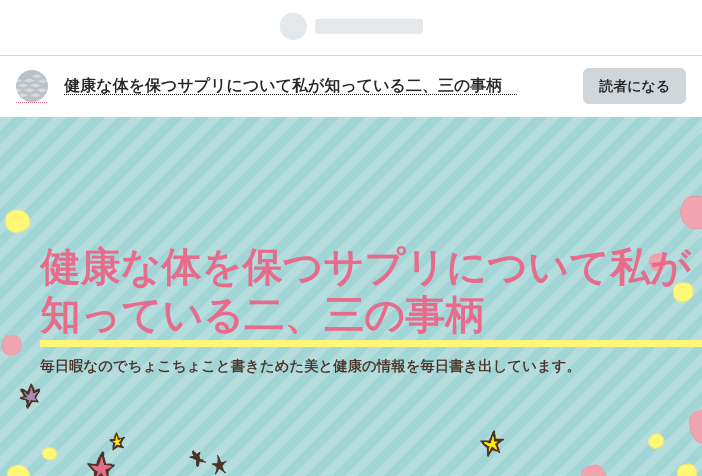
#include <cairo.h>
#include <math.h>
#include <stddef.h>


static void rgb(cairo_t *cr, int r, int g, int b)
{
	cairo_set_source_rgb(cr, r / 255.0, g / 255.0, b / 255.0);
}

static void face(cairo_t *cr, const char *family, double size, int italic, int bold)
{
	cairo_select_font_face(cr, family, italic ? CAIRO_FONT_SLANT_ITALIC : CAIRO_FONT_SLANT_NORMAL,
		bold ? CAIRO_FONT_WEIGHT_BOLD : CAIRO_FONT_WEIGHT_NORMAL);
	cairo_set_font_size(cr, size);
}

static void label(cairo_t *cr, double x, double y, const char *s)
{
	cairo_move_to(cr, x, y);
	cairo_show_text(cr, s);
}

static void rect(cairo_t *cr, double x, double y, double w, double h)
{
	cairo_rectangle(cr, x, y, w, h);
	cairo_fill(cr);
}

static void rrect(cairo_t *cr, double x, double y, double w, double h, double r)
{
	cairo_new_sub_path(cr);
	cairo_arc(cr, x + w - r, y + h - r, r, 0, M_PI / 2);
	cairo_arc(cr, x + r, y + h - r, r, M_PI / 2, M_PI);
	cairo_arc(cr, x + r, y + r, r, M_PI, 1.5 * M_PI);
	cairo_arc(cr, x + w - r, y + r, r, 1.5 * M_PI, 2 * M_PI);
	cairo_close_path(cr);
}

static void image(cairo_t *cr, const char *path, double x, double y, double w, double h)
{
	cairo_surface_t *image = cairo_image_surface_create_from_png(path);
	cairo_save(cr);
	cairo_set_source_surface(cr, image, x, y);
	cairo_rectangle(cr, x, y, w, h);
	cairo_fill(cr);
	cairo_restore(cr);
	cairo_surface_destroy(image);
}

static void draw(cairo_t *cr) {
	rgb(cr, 255, 255, 255);
	cairo_paint(cr);
	rgb(cr, 210, 216, 221);
	rect(cr, 0, 55, 702, 1);
	image(cr, "image0.png", 280, 13, 143, 27);
	cairo_new_path(cr);
	cairo_move_to(cr, 16, 102.5);
	cairo_line_to(cr, 48, 102.5);
	rgb(cr, 231, 107, 138);
	cairo_set_line_width(cr, 1);
	cairo_set_dash(cr, (double[]){1, 1}, 2, 0);
	cairo_stroke(cr);
	image(cr, "image1.png", 16, 70, 32, 32);
	face(cr, "WenQuanYi Zen Hei", 16, 0, 1);
	rgb(cr, 36, 37, 39);
	label(cr, 64, 91, "健康な体を保つサプリについて私が知っている二、三の事柄");
	cairo_new_path(cr);
	cairo_move_to(cr, 64, 94.5);
	cairo_line_to(cr, 518, 94.5);
	cairo_stroke(cr);
	rgb(cr, 209, 214, 218);
	rrect(cr, 583, 68, 103, 36, 6);
	cairo_fill(cr);
	face(cr, "WenQuanYi Zen Hei", 14, 0, 1);
	rgb(cr, 36, 37, 39);
	label(cr, 599, 91, "読者になる");
	image(cr, "image2.png", 0, 117, 702, 359);
	image(cr, "image3.png", 1, 195, 701, 281);
	rgb(cr, 255, 247, 117);
	rect(cr, 40, 340, 662, 7);
	face(cr, "WenQuanYi Zen Hei", 40, 0, 1);
	rgb(cr, 231, 107, 138);
	label(cr, 40, 281, "健康な体を保つサプリについて私が");
	label(cr, 40, 329, "知っている二、三の事柄");
	face(cr, "WenQuanYi Zen Hei", 14.4, 0, 1);
	rgb(cr, 76, 51, 38);
	label(cr, 40, 371, "毎日暇なのでちょこちょこと書きためた美と健康の情報を毎日書き出しています。");
}

int main(void) {
	cairo_surface_t *surface = cairo_image_surface_create(CAIRO_FORMAT_RGB24, 702, 476);
	cairo_t *cr = cairo_create(surface);
	cairo_font_options_t *options = cairo_font_options_create();
	cairo_font_options_set_hint_metrics(options, CAIRO_HINT_METRICS_OFF);
	cairo_font_options_set_hint_style(options, CAIRO_HINT_STYLE_NONE);
	cairo_set_font_options(cr, options);
	cairo_set_miter_limit(cr, 4);
	draw(cr);
	cairo_surface_write_to_png(surface, "render.png");
	cairo_font_options_destroy(options);
	cairo_destroy(cr);
	cairo_surface_destroy(surface);
	return 0;
}
